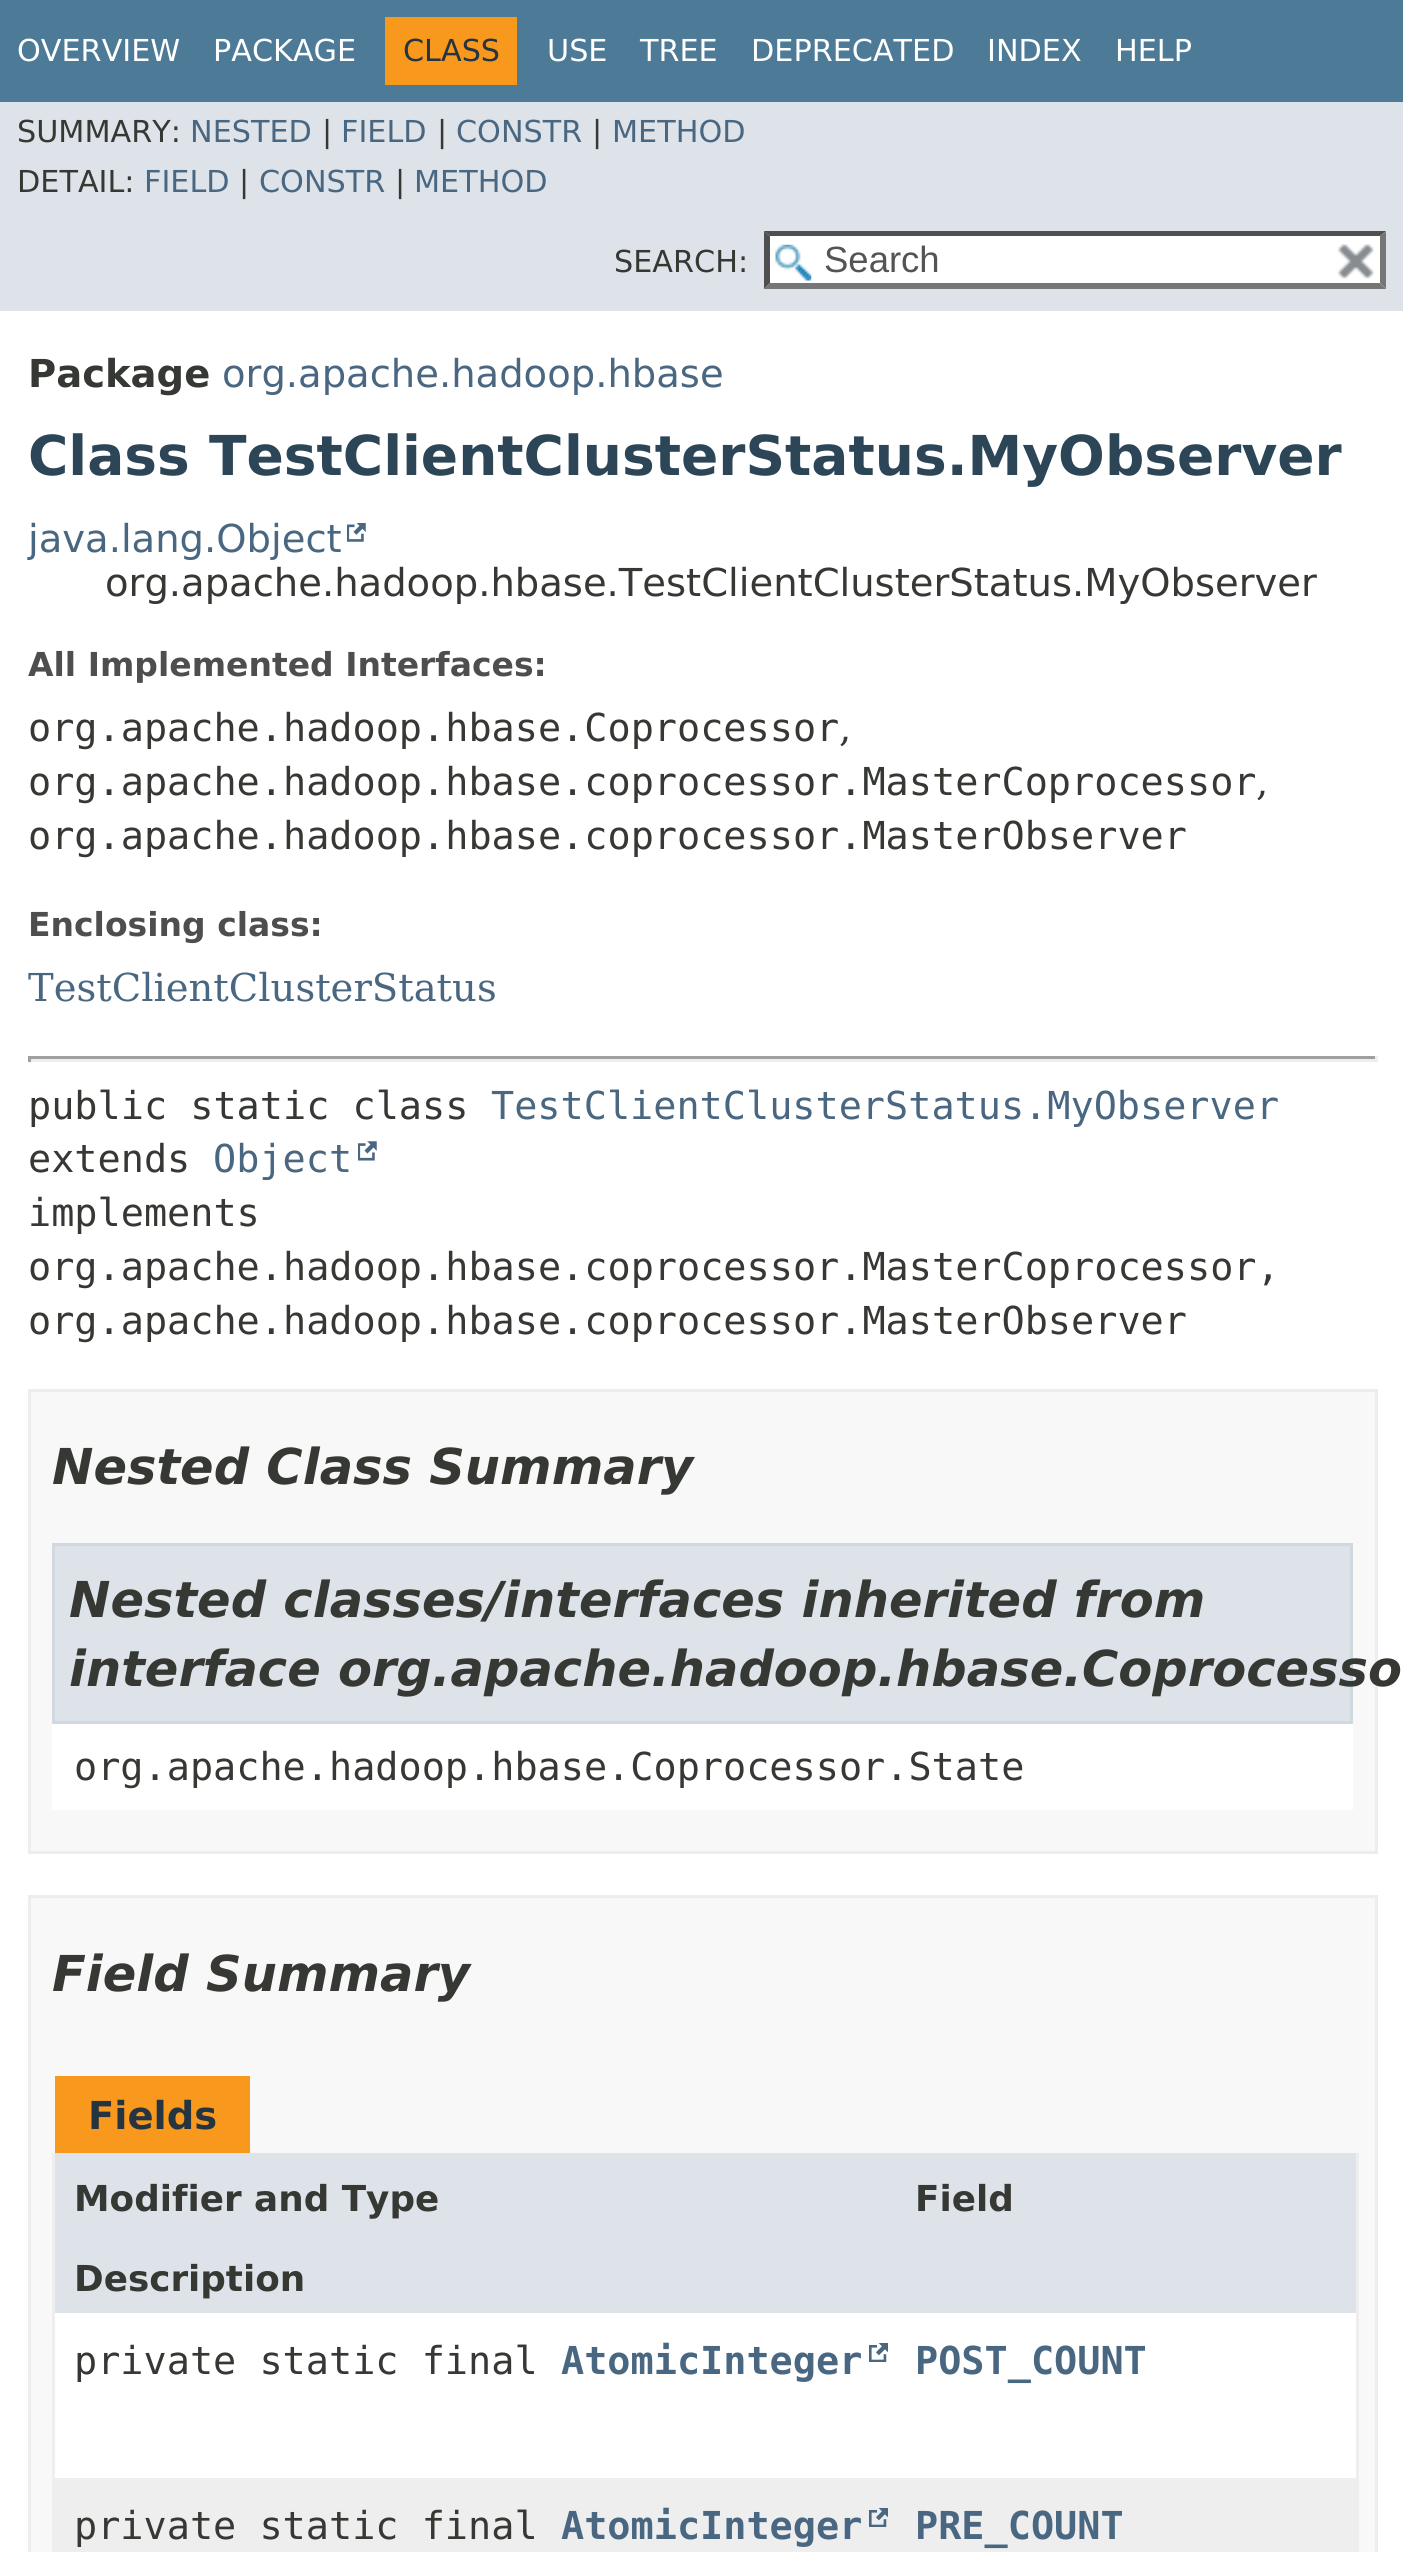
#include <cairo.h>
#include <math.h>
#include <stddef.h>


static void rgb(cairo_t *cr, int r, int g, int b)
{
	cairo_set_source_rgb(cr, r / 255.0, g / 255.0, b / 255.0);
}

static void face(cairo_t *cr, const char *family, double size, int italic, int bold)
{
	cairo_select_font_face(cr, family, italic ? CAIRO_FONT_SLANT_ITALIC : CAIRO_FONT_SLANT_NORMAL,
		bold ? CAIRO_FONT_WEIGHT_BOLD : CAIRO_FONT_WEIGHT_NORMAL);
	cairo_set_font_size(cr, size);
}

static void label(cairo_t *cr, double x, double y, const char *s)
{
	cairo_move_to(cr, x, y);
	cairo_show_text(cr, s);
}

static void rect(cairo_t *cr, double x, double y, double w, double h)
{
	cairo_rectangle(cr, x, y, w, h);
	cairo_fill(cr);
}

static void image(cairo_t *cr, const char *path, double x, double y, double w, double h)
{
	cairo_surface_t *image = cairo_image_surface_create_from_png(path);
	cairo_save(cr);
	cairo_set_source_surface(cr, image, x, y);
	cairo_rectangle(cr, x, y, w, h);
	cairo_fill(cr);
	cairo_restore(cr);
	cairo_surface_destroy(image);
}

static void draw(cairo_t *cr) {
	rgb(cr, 255, 255, 255);
	cairo_paint(cr);
	rgb(cr, 77, 122, 151);
	rect(cr, 0, 0, 1403, 102);
	face(cr, "DejaVu Sans", 30.25, 0, 0);
	rgb(cr, 255, 255, 255);
	label(cr, 17, 61, "OVERVIEW");
	label(cr, 213, 61, "PACKAGE");
	rgb(cr, 248, 152, 29);
	rect(cr, 385, 17, 132, 68);
	rgb(cr, 37, 52, 65);
	label(cr, 403, 61, "CLASS");
	rgb(cr, 255, 255, 255);
	label(cr, 547, 61, "USE");
	label(cr, 640, 61, "TREE");
	label(cr, 751, 61, "DEPRECATED");
	label(cr, 987, 61, "INDEX");
	label(cr, 1115, 61, "HELP");
	rgb(cr, 222, 227, 233);
	rect(cr, 0, 102, 1403, 209);
	rgb(cr, 53, 56, 51);
	label(cr, 17, 142, "SUMMARY:");
	rgb(cr, 74, 103, 130);
	label(cr, 190, 142, "NESTED");
	rgb(cr, 53, 56, 51);
	label(cr, 322, 142, "|");
	rgb(cr, 74, 103, 130);
	label(cr, 341, 142, "FIELD");
	rgb(cr, 53, 56, 51);
	label(cr, 437, 142, "|");
	rgb(cr, 74, 103, 130);
	label(cr, 456, 142, "CONSTR");
	rgb(cr, 53, 56, 51);
	label(cr, 592, 142, "|");
	rgb(cr, 74, 103, 130);
	label(cr, 612, 142, "METHOD");
	rgb(cr, 53, 56, 51);
	label(cr, 17, 192, "DETAIL:");
	rgb(cr, 74, 103, 130);
	label(cr, 144, 192, "FIELD");
	rgb(cr, 53, 56, 51);
	label(cr, 239, 192, "|");
	rgb(cr, 74, 103, 130);
	label(cr, 259, 192, "CONSTR");
	rgb(cr, 53, 56, 51);
	label(cr, 395, 192, "|");
	rgb(cr, 74, 103, 130);
	label(cr, 414, 192, "METHOD");
	rgb(cr, 53, 56, 51);
	label(cr, 614, 272, "SEARCH:");
	rgb(cr, 255, 255, 255);
	rect(cr, 765, 231, 621, 58);
	image(cr, "image0.png", 775, 244, 37, 37);
	rgb(cr, 79, 79, 79);
	cairo_new_path(cr);
	cairo_move_to(cr, 764, 231);
	cairo_line_to(cr, 1386, 231);
	cairo_line_to(cr, 1380, 236);
	cairo_line_to(cr, 770, 236);
	cairo_close_path(cr);
	cairo_fill(cr);
	rgb(cr, 118, 118, 118);
	cairo_new_path(cr);
	cairo_move_to(cr, 1386, 231);
	cairo_line_to(cr, 1386, 289);
	cairo_line_to(cr, 1380, 283);
	cairo_line_to(cr, 1380, 236);
	cairo_close_path(cr);
	cairo_fill(cr);
	cairo_new_path(cr);
	cairo_move_to(cr, 1386, 289);
	cairo_line_to(cr, 764, 289);
	cairo_line_to(cr, 770, 283);
	cairo_line_to(cr, 1380, 283);
	cairo_close_path(cr);
	cairo_fill(cr);
	rgb(cr, 79, 79, 79);
	cairo_new_path(cr);
	cairo_move_to(cr, 764, 289);
	cairo_line_to(cr, 764, 231);
	cairo_line_to(cr, 770, 236);
	cairo_line_to(cr, 770, 283);
	cairo_close_path(cr);
	cairo_fill(cr);
	face(cr, "Liberation Sans", 36.5, 0, 0);
	rgb(cr, 84, 84, 84);
	label(cr, 824, 272, "Search");
	image(cr, "image1.png", 1337, 244, 37, 35);
	face(cr, "DejaVu Sans", 38.5, 0, 1);
	rgb(cr, 53, 56, 51);
	label(cr, 28, 387, "Package");
	face(cr, "DejaVu Sans", 38.5, 0, 0);
	rgb(cr, 74, 103, 130);
	label(cr, 222, 387, "org.apache.hadoop.hbase");
	face(cr, "DejaVu Sans", 55, 0, 1);
	rgb(cr, 44, 69, 87);
	label(cr, 28, 475, "Class TestClientClusterStatus.MyObserver");
	face(cr, "DejaVu Sans", 38.5, 0, 0);
	rgb(cr, 74, 103, 130);
	label(cr, 28, 552, "java.lang.Object");
	image(cr, "image2.png", 347, 523, 19, 19);
	rgb(cr, 53, 56, 51);
	label(cr, 105, 596, "org.apache.hadoop.hbase.TestClientClusterStatus.MyObserver");
	face(cr, "DejaVu Sans", 33, 0, 1);
	rgb(cr, 78, 78, 78);
	label(cr, 28, 676, "All Implemented Interfaces:");
	face(cr, "DejaVu Sans Mono", 38.5, 0, 0);
	rgb(cr, 53, 56, 51);
	label(cr, 28, 741, "org.apache.hadoop.hbase.Coprocessor");
	face(cr, "DejaVu Serif", 38.5, 0, 0);
	label(cr, 839, 741, ",");
	face(cr, "DejaVu Sans Mono", 38.5, 0, 0);
	label(cr, 28, 795, "org.apache.hadoop.hbase.coprocessor.MasterCoprocessor");
	face(cr, "DejaVu Serif", 38.5, 0, 0);
	label(cr, 1256, 795, ",");
	face(cr, "DejaVu Sans Mono", 38.5, 0, 0);
	label(cr, 28, 849, "org.apache.hadoop.hbase.coprocessor.MasterObserver");
	face(cr, "DejaVu Sans", 33, 0, 1);
	rgb(cr, 78, 78, 78);
	label(cr, 28, 936, "Enclosing class:");
	face(cr, "DejaVu Serif", 38.5, 0, 0);
	rgb(cr, 74, 103, 130);
	label(cr, 28, 1001, "TestClientClusterStatus");
	rgb(cr, 159, 159, 159);
	rect(cr, 28, 1056, 1350, 3);
	rgb(cr, 238, 238, 238);
	rect(cr, 1375, 1056, 3, 6);
	rect(cr, 28, 1059, 1350, 3);
	rgb(cr, 159, 159, 159);
	rect(cr, 28, 1056, 3, 6);
	face(cr, "DejaVu Sans Mono", 38.5, 0, 0);
	rgb(cr, 53, 56, 51);
	label(cr, 28, 1119, "public static class");
	rgb(cr, 74, 103, 130);
	label(cr, 491, 1119, "TestClientClusterStatus.MyObserver");
	rgb(cr, 53, 56, 51);
	label(cr, 28, 1172, "extends");
	rgb(cr, 74, 103, 130);
	label(cr, 213, 1172, "Object");
	image(cr, "image3.png", 358, 1141, 19, 20);
	rgb(cr, 53, 56, 51);
	label(cr, 28, 1226, "implements");
	label(cr, 28, 1280, "org.apache.hadoop.hbase.coprocessor.MasterCoprocessor,");
	label(cr, 28, 1334, "org.apache.hadoop.hbase.coprocessor.MasterObserver");
	rgb(cr, 248, 248, 248);
	cairo_rectangle(cr, 29.5, 1390.5, 1347, 462);
	cairo_fill_preserve(cr);
	rgb(cr, 237, 237, 237);
	cairo_set_line_width(cr, 3);
	cairo_stroke(cr);
	face(cr, "DejaVu Sans", 49.5, 1, 1);
	rgb(cr, 53, 56, 51);
	label(cr, 52, 1484, "Nested Class Summary");
	rgb(cr, 255, 255, 255);
	rect(cr, 52, 1724, 1301, 86);
	rgb(cr, 222, 227, 233);
	cairo_rectangle(cr, 53.5, 1544.5, 1298, 178);
	cairo_fill_preserve(cr);
	rgb(cr, 208, 217, 224);
	cairo_stroke(cr);
	rgb(cr, 53, 56, 51);
	label(cr, 69, 1617, "Nested classes/interfaces inherited from");
	label(cr, 69, 1686, "interface org.apache.hadoop.hbase.Coprocesso");
	face(cr, "DejaVu Sans Mono", 38.5, 0, 0);
	label(cr, 74, 1780, "org.apache.hadoop.hbase.Coprocessor.State");
	rgb(cr, 248, 248, 248);
	cairo_rectangle(cr, 29.5, 1896.5, 1347, 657);
	cairo_fill_preserve(cr);
	rgb(cr, 237, 237, 237);
	cairo_stroke(cr);
	face(cr, "DejaVu Sans", 49.5, 1, 1);
	rgb(cr, 53, 56, 51);
	label(cr, 52, 1991, "Field Summary");
	rgb(cr, 248, 152, 29);
	rect(cr, 55, 2076, 195, 77);
	face(cr, "DejaVu Sans", 38.5, 0, 1);
	rgb(cr, 37, 52, 65);
	label(cr, 88, 2129, "Fields");
	rgb(cr, 238, 238, 238);
	rect(cr, 1356, 2153, 3, 399);
	rect(cr, 52, 2153, 3, 399);
	rgb(cr, 222, 227, 233);
	rect(cr, 55, 2153, 1301, 80);
	face(cr, "DejaVu Sans", 35.75, 0, 1);
	rgb(cr, 53, 56, 51);
	label(cr, 74, 2211, "Modifier and Type");
	label(cr, 915, 2211, "Field");
	rgb(cr, 222, 227, 233);
	rect(cr, 55, 2233, 1301, 80);
	rgb(cr, 53, 56, 51);
	label(cr, 74, 2291, "Description");
	rgb(cr, 255, 255, 255);
	rect(cr, 55, 2313, 1301, 85);
	face(cr, "DejaVu Sans Mono", 38.5, 0, 0);
	rgb(cr, 53, 56, 51);
	label(cr, 74, 2374, "private static final");
	face(cr, "DejaVu Sans Mono", 38.5, 0, 1);
	rgb(cr, 74, 103, 130);
	label(cr, 561, 2374, "AtomicInteger");
	image(cr, "image4.png", 869, 2343, 19, 19);
	label(cr, 915, 2374, "POST_COUNT");
	rgb(cr, 255, 255, 255);
	rect(cr, 55, 2398, 1301, 80);
	rgb(cr, 238, 238, 239);
	rect(cr, 55, 2478, 1301, 74);
	face(cr, "DejaVu Sans Mono", 38.5, 0, 0);
	rgb(cr, 53, 56, 51);
	label(cr, 74, 2539, "private static final");
	face(cr, "DejaVu Sans Mono", 38.5, 0, 1);
	rgb(cr, 74, 103, 130);
	label(cr, 561, 2539, "AtomicInteger");
	image(cr, "image5.png", 869, 2508, 19, 19);
	label(cr, 915, 2539, "PRE_COUNT");
}

int main(void) {
	cairo_surface_t *surface = cairo_image_surface_create(CAIRO_FORMAT_RGB24, 1403, 2552);
	cairo_t *cr = cairo_create(surface);
	cairo_font_options_t *options = cairo_font_options_create();
	cairo_font_options_set_hint_metrics(options, CAIRO_HINT_METRICS_OFF);
	cairo_font_options_set_hint_style(options, CAIRO_HINT_STYLE_NONE);
	cairo_set_font_options(cr, options);
	cairo_set_miter_limit(cr, 4);
	draw(cr);
	cairo_surface_write_to_png(surface, "render.png");
	cairo_font_options_destroy(options);
	cairo_destroy(cr);
	cairo_surface_destroy(surface);
	return 0;
}
